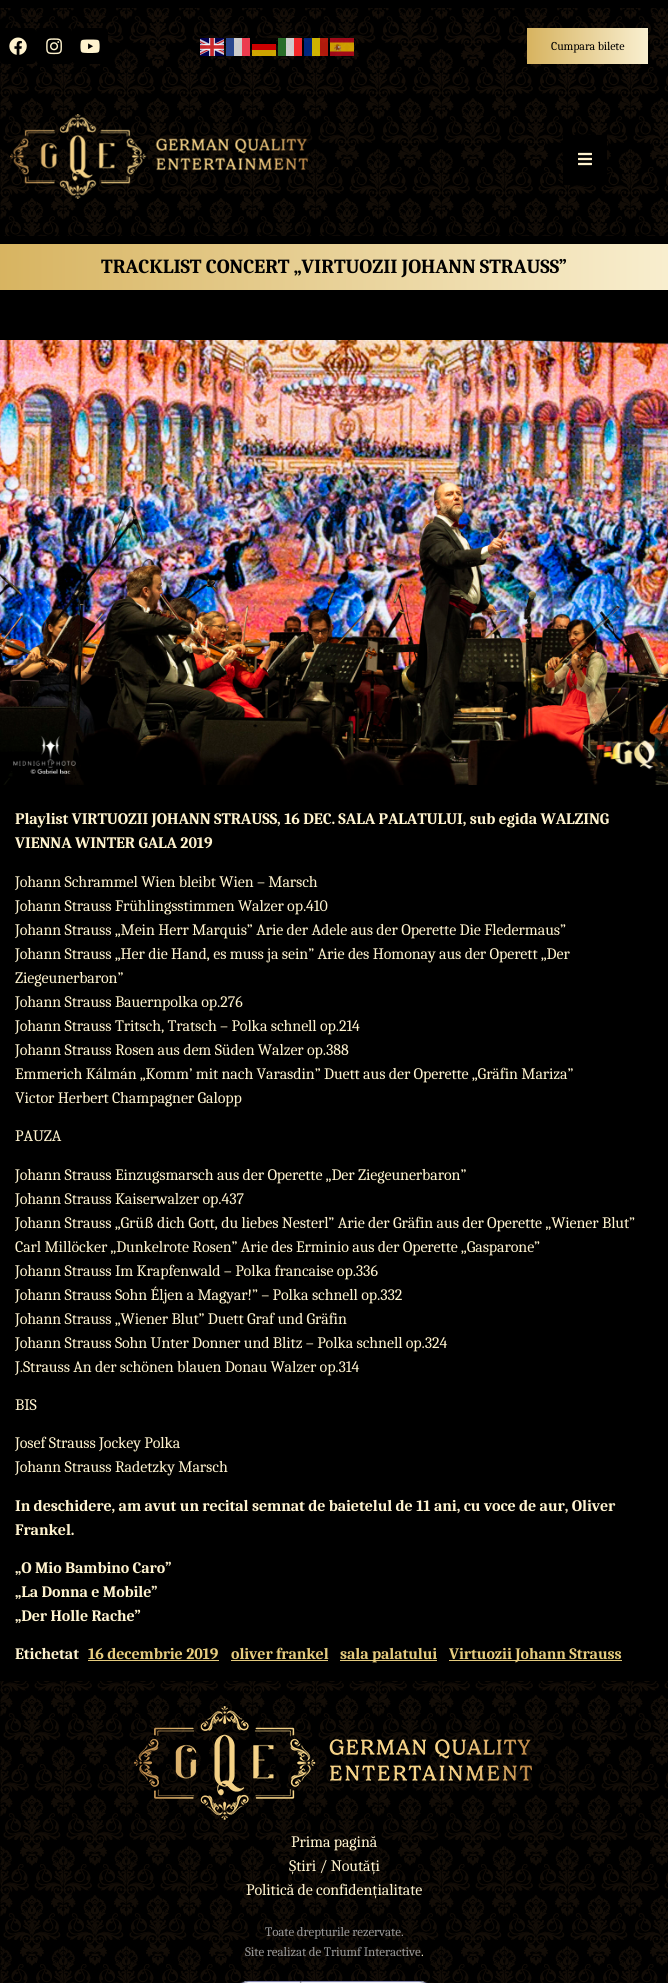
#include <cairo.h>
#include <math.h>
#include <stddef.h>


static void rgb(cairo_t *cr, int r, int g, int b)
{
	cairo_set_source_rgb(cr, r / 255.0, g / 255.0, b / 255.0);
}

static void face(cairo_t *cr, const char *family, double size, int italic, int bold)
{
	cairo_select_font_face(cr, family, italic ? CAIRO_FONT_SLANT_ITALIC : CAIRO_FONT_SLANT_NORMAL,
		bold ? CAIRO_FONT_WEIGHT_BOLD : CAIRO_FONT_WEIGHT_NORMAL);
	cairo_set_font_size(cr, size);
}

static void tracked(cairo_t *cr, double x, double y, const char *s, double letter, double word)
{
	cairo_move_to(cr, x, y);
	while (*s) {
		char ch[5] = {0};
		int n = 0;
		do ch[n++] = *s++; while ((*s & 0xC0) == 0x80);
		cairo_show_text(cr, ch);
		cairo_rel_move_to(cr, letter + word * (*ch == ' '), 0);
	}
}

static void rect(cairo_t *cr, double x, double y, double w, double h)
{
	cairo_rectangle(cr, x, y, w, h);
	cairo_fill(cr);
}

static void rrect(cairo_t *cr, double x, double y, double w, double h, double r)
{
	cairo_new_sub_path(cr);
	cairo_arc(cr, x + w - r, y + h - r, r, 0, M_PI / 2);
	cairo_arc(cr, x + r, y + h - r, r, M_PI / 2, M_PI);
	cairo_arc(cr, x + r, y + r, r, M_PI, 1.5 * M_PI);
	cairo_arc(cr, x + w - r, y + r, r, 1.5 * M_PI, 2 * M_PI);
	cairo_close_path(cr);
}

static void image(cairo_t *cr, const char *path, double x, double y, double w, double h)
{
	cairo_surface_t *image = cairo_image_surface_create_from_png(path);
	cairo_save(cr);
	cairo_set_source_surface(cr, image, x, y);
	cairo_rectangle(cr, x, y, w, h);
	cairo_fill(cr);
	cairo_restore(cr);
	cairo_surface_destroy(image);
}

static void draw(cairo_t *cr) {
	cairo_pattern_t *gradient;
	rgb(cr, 0, 0, 0);
	cairo_paint(cr);
	image(cr, "image0.png", 0, 8, 668, 76);
	rgb(cr, 0, 0, 0);
	rrect(cr, 0, 28, 36, 36, 4);
	cairo_fill(cr);
	image(cr, "image1.png", 9, 37, 18, 18);
	rrect(cr, 36, 28, 36, 36, 4);
	cairo_fill(cr);
	image(cr, "image2.png", 46, 38, 16, 17);
	rrect(cr, 72, 28, 36, 36, 4);
	cairo_fill(cr);
	image(cr, "image3.png", 80, 39, 20, 14);
	image(cr, "image4.png", 200, 38, 24, 18);
	cairo_set_source_rgba(cr, 1, 1, 1, 0.8);
	rect(cr, 226, 38, 24, 18);
	cairo_set_source_rgba(cr, 0, 0.149, 0.498, 0.8);
	rect(cr, 226, 38, 8, 18);
	cairo_set_source_rgba(cr, 0.953, 0.094, 0.188, 0.8);
	rect(cr, 242, 38, 8, 18);
	cairo_set_source_rgba(cr, 0, 0, 0, 0.8);
	rect(cr, 252, 38, 24, 6);
	cairo_set_source_rgba(cr, 1, 1, 1, 0.8);
	rect(cr, 278, 38, 24, 18);
	cairo_set_source_rgba(cr, 1, 0, 0, 0.8);
	rect(cr, 252, 44, 24, 6);
	cairo_set_source_rgba(cr, 0, 0.341, 0, 0.8);
	rect(cr, 278, 38, 8, 18);
	cairo_set_source_rgba(cr, 0.988, 0, 0, 0.8);
	rect(cr, 294, 38, 8, 18);
	cairo_set_source_rgba(cr, 0, 0.192, 0.612, 0.8);
	rect(cr, 304, 38, 8, 18);
	cairo_set_source_rgba(cr, 1, 0.871, 0, 0.8);
	rect(cr, 312, 38, 8, 18);
	cairo_set_source_rgba(cr, 0.871, 0.129, 0.063, 0.8);
	rect(cr, 320, 38, 8, 18);
	image(cr, "image5.png", 330, 38, 24, 18);
	cairo_set_source_rgba(cr, 1, 0.8, 0, 0.8);
	rect(cr, 252, 50, 24, 6);
	gradient = cairo_pattern_create_linear(527, 46, 648, 46);
	cairo_pattern_add_color_stop_rgba(gradient, 0, 0.843, 0.702, 0.373, 1);
	cairo_pattern_add_color_stop_rgba(gradient, 1, 0.976, 0.937, 0.816, 1);
	cairo_set_source(cr, gradient);
	cairo_pattern_destroy(gradient);
	rect(cr, 527, 28, 121, 36);
	face(cr, "Caladea", 12, 0, 0);
	rgb(cr, 0, 0, 0);
	tracked(cr, 551, 50, "Cumpara bilete", -0.1, 0);
	image(cr, "image6.png", 0, 84, 668, 152);
	image(cr, "image7.png", 10, 114, 298, 85);
	rect(cr, 563, 135, 44, 50);
	image(cr, "image8.png", 578, 152, 14, 14);
	gradient = cairo_pattern_create_linear(-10, 267, 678, 267);
	cairo_pattern_add_color_stop_rgba(gradient, 0, 0.843, 0.702, 0.373, 1);
	cairo_pattern_add_color_stop_rgba(gradient, 1, 0.976, 0.937, 0.816, 1);
	cairo_set_source(cr, gradient);
	cairo_pattern_destroy(gradient);
	rect(cr, 0, 244, 668, 46);
	face(cr, "Caladea", 20, 0, 1);
	rgb(cr, 0, 0, 0);
	tracked(cr, 101, 273, "TRACKLIST CONCERT „VIRTUOZII JOHANN STRAUSS”", -0.1, 0);
	image(cr, "image9.png", 0, 340, 668, 445);
	face(cr, "Caladea", 16, 0, 1);
	rgb(cr, 255, 243, 206);
	tracked(cr, 15, 824, "Playlist VIRTUOZII JOHANN STRAUSS, 16 DEC. SALA PALATULUI, sub egida WALZING", -0.1, 0);
	tracked(cr, 15, 848, "VIENNA WINTER GALA 2019", -0.1, 0);
	face(cr, "Caladea", 16, 0, 0);
	tracked(cr, 15, 887, "Johann Schrammel Wien bleibt Wien – Marsch", -0.1, 0);
	tracked(cr, 15, 911, "Johann Strauss Frühlingsstimmen Walzer op.410", -0.1, 0);
	tracked(cr, 15, 935, "Johann Strauss „Mein Herr Marquis” Arie der Adele aus der Operette Die Fledermaus”", -0.1, 0);
	tracked(cr, 15, 959, "Johann Strauss „Her die Hand, es muss ja sein” Arie des Homonay aus der Operett „Der", -0.1, 0);
	tracked(cr, 15, 983, "Ziegeunerbaron”", -0.1, 0);
	tracked(cr, 15, 1007, "Johann Strauss Bauernpolka op.276", -0.1, 0);
	tracked(cr, 15, 1031, "Johann Strauss Tritsch, Tratsch – Polka schnell op.214", -0.1, 0);
	tracked(cr, 15, 1055, "Johann Strauss Rosen aus dem Süden Walzer op.388", -0.1, 0);
	tracked(cr, 15, 1079, "Emmerich Kálmán „Komm’ mit nach Varasdin” Duett aus der Operette „Gräfin Mariza”", -0.1, 0);
	tracked(cr, 15, 1103, "Victor Herbert Champagner Galopp", -0.1, 0);
	tracked(cr, 15, 1141, "PAUZA", -0.1, 0);
	tracked(cr, 15, 1180, "Johann Strauss Einzugsmarsch aus der Operette „Der Ziegeunerbaron”", -0.1, 0);
	tracked(cr, 15, 1204, "Johann Strauss Kaiserwalzer op.437", -0.1, 0);
	tracked(cr, 15, 1228, "Johann Strauss „Grüß dich Gott, du liebes Nesterl” Arie der Gräfin aus der Operette „Wiener Blut”", -0.1, 0);
	tracked(cr, 15, 1252, "Carl Millöcker „Dunkelrote Rosen” Arie des Erminio aus der Operette „Gasparone”", -0.1, 0);
	tracked(cr, 15, 1276, "Johann Strauss Im Krapfenwald – Polka francaise op.336", -0.1, 0);
	tracked(cr, 15, 1300, "Johann Strauss Sohn Éljen a Magyar!” – Polka schnell op.332", -0.1, 0);
	tracked(cr, 15, 1324, "Johann Strauss „Wiener Blut” Duett Graf und Gräfin", -0.1, 0);
	tracked(cr, 15, 1348, "Johann Strauss Sohn Unter Donner und Blitz – Polka schnell op.324", -0.1, 0);
	tracked(cr, 15, 1372, "J.Strauss An der schönen blauen Donau Walzer op.314", -0.1, 0);
	tracked(cr, 15, 1410, "BIS", -0.1, 0);
	tracked(cr, 15, 1448, "Josef Strauss Jockey Polka", -0.1, 0);
	tracked(cr, 15, 1472, "Johann Strauss Radetzky Marsch", -0.1, 0);
	face(cr, "Caladea", 16, 0, 1);
	tracked(cr, 15, 1511, "In deschidere, am avut un recital semnat de baietelul de 11 ani, cu voce de aur, Oliver", -0.1, 0);
	tracked(cr, 15, 1535, "Frankel.", -0.1, 0);
	tracked(cr, 15, 1573, "„O Mio Bambino Caro”", -0.1, 0);
	tracked(cr, 15, 1597, "„La Donna e Mobile”", -0.1, 0);
	tracked(cr, 15, 1621, "„Der Holle Rache”", -0.1, 0);
	tracked(cr, 15, 1659, "Etichetat", -0.1, 0);
	rgb(cr, 229, 203, 126);
	tracked(cr, 88, 1659, "16 decembrie 2019", -0.1, 0);
	rect(cr, 88, 1660, 131, 1);
	tracked(cr, 231, 1659, "oliver frankel", -0.1, 0);
	rect(cr, 231, 1660, 97, 1);
	rect(cr, 340, 1660, 97, 1);
	tracked(cr, 340, 1659, "sala palatului", -0.1, 0);
	rect(cr, 449, 1660, 173, 1);
	tracked(cr, 449, 1659, "Virtuozii Johann Strauss", -0.1, 0);
	image(cr, "image10.png", 0, 1681, 668, 302);
	image(cr, "image11.png", 134, 1706, 398, 114);
	face(cr, "Caladea", 16, 0, 0);
	rgb(cr, 255, 243, 206);
	tracked(cr, 291, 1847, "Prima pagină", -0.1, 0);
	tracked(cr, 289, 1871, "Știri / Noutăți", -0.1, 0);
	tracked(cr, 246, 1895, "Politică de confidențialitate", -0.1, 0);
	face(cr, "Caladea", 13, 0, 0);
	rgb(cr, 153, 153, 153);
	tracked(cr, 265, 1936, "Toate drepturile rezervate.", -0.1, 0);
	tracked(cr, 245, 1956, "Site realizat de Triumf Interactive", -0.1, 0);
	rgb(cr, 255, 243, 206);
	tracked(cr, 421, 1956, ".", -0.1, 0);
	image(cr, "image12.png", 240, 1981, 188, 2);
}

int main(void) {
	cairo_surface_t *surface = cairo_image_surface_create(CAIRO_FORMAT_RGB24, 668, 1983);
	cairo_t *cr = cairo_create(surface);
	cairo_font_options_t *options = cairo_font_options_create();
	cairo_font_options_set_hint_metrics(options, CAIRO_HINT_METRICS_OFF);
	cairo_font_options_set_hint_style(options, CAIRO_HINT_STYLE_NONE);
	cairo_set_font_options(cr, options);
	cairo_set_miter_limit(cr, 4);
	draw(cr);
	cairo_surface_write_to_png(surface, "render.png");
	cairo_font_options_destroy(options);
	cairo_destroy(cr);
	cairo_surface_destroy(surface);
	return 0;
}
